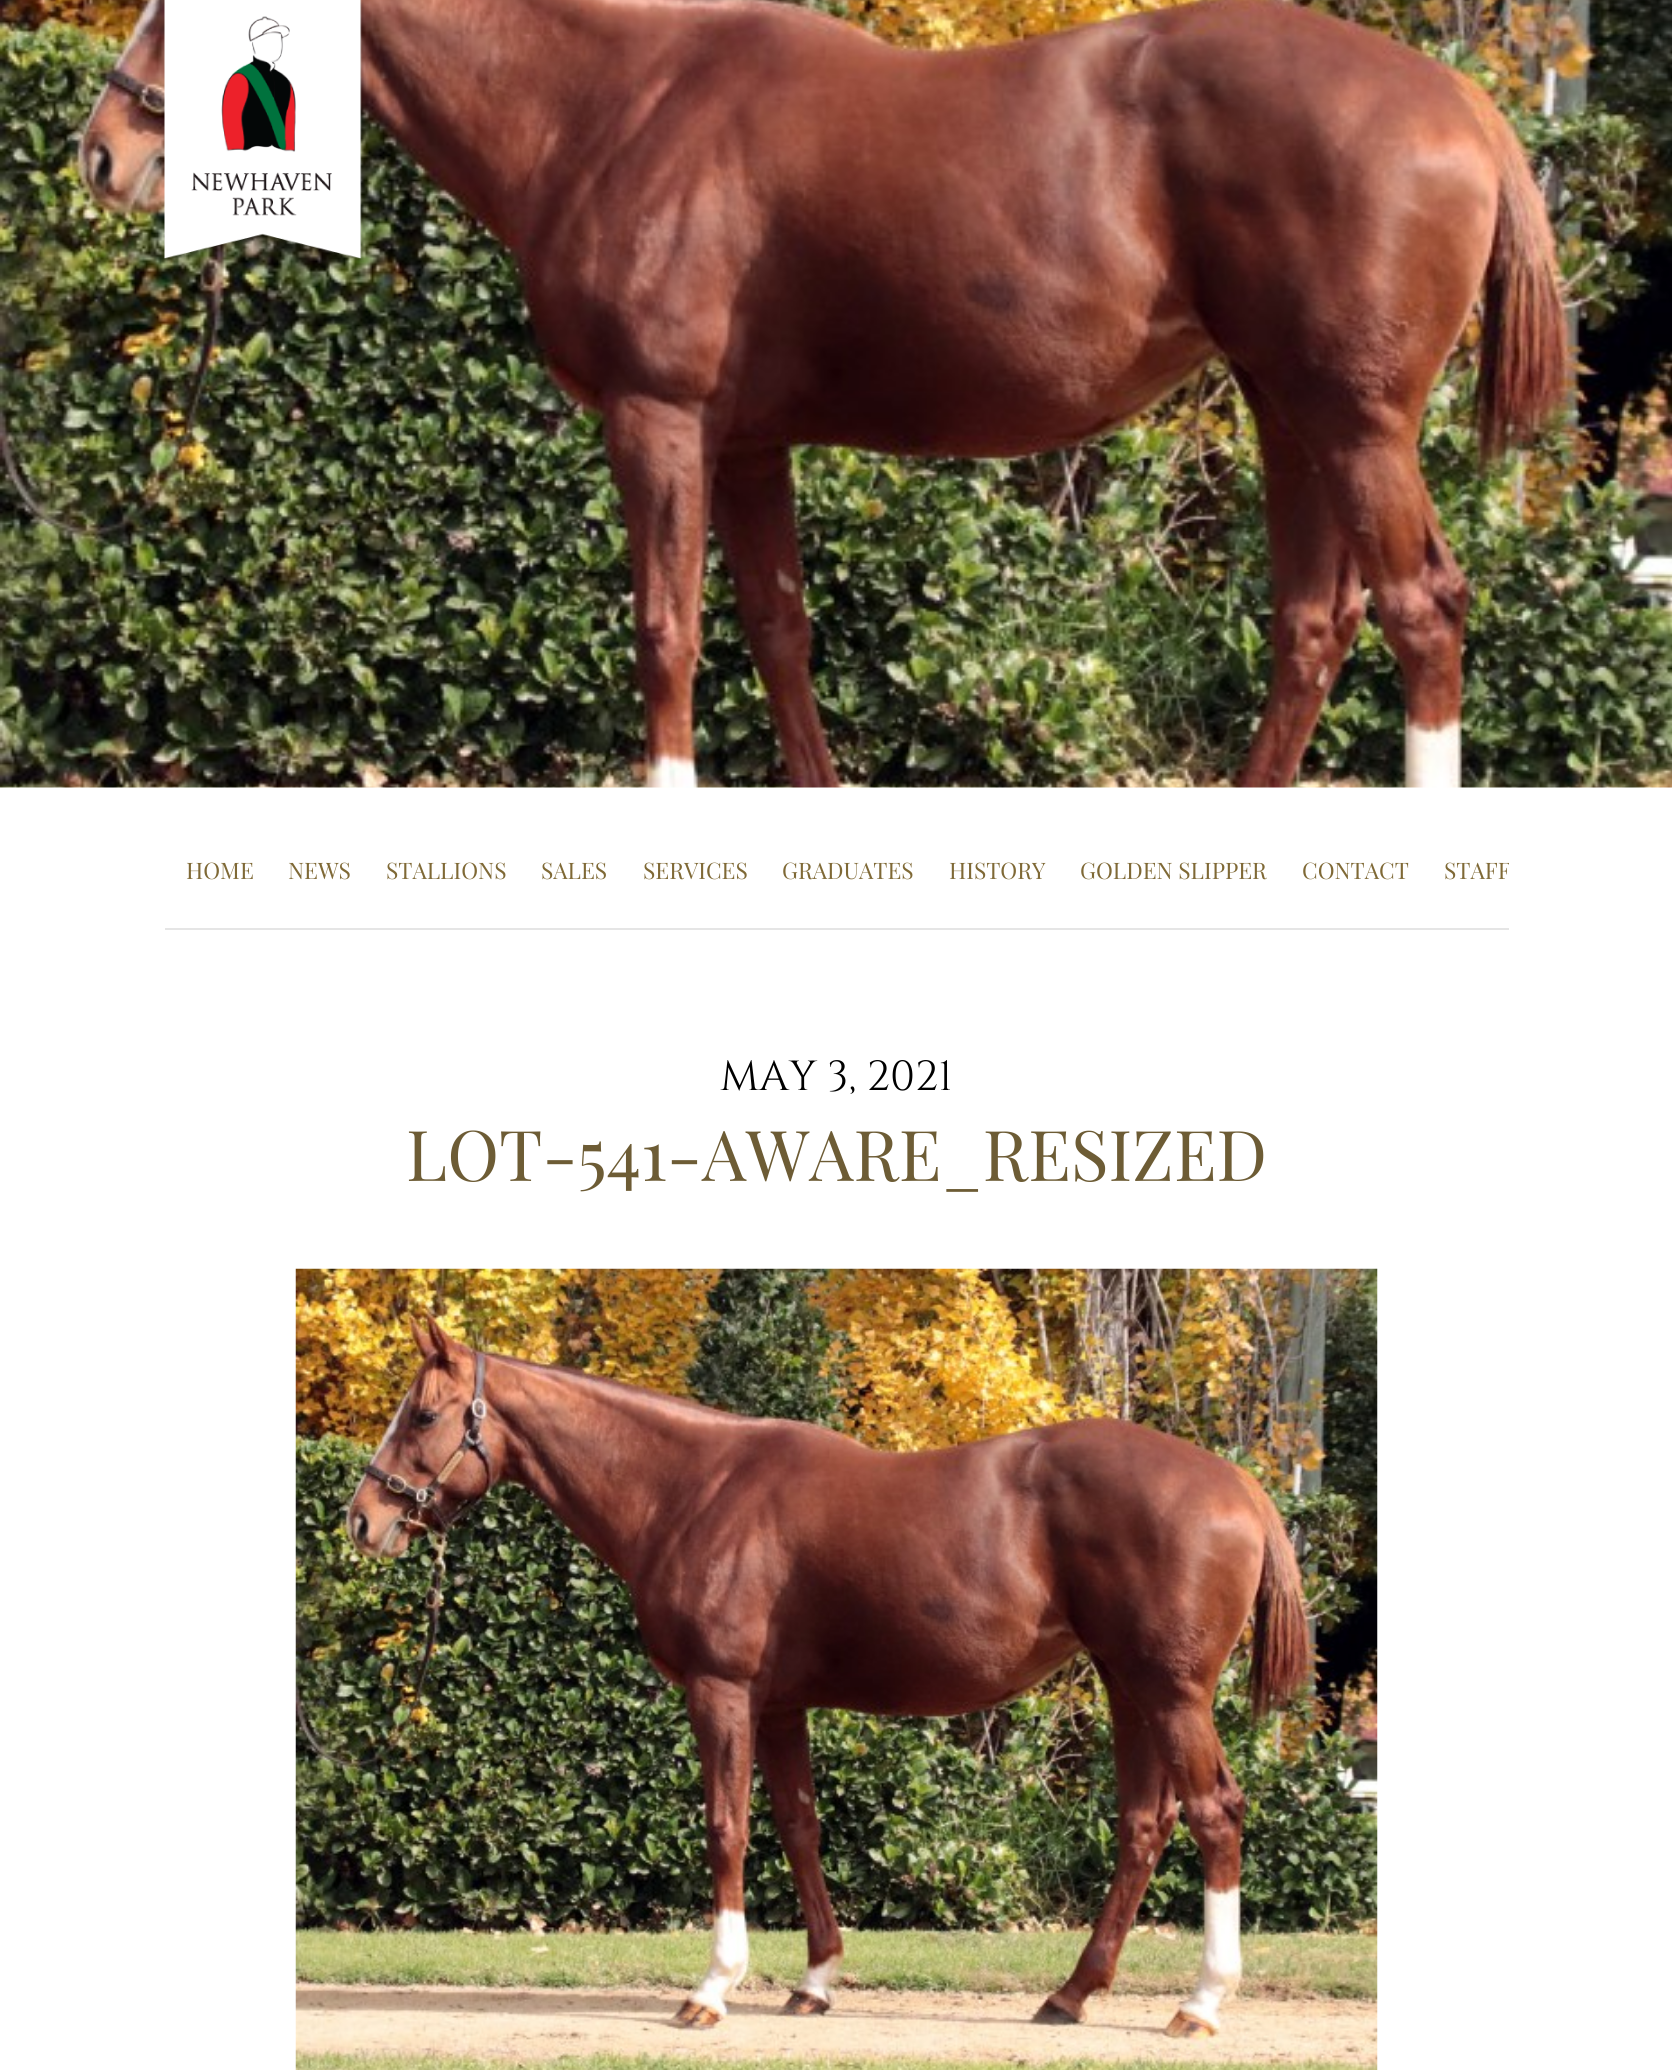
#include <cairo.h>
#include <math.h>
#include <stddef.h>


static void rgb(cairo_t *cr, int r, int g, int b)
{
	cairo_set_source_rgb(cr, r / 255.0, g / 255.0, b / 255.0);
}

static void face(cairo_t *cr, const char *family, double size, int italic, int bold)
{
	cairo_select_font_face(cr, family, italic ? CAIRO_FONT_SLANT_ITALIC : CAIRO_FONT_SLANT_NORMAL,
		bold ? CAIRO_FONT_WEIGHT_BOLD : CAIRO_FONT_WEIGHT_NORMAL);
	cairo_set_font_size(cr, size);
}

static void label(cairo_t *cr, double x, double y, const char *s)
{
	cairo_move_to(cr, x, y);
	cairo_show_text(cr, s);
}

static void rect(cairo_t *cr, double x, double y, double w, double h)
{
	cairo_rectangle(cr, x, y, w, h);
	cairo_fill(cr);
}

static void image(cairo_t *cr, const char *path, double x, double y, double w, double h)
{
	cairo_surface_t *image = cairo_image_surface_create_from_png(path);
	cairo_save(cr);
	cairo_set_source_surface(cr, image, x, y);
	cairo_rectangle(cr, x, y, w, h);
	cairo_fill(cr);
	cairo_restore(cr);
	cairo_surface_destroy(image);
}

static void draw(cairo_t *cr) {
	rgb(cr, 255, 255, 255);
	cairo_paint(cr);
	image(cr, "image0.png", 0, 0, 1672, 788);
	image(cr, "image1.png", 164, 0, 200, 262);
	rgb(cr, 229, 229, 229);
	rect(cr, 165, 928, 1344, 2);
	face(cr, "Playfair Display", 22.75, 0, 0);
	rgb(cr, 127, 105, 54);
	label(cr, 186, 879, "HOME");
	label(cr, 288, 879, "NEWS");
	label(cr, 386, 879, "STALLIONS");
	label(cr, 541, 879, "SALES");
	label(cr, 643, 879, "SERVICES");
	label(cr, 782, 879, "GRADUATES");
	label(cr, 949, 879, "HISTORY");
	label(cr, 1080, 879, "GOLDEN SLIPPER");
	label(cr, 1302, 879, "CONTACT");
	cairo_save(cr);
	cairo_rectangle(cr, 165, 788, 1344, 140);
	cairo_clip(cr);
	label(cr, 1444, 879, "STAFF");
	cairo_restore(cr);
	face(cr, "Cinzel", 42, 0, 0);
	rgb(cr, 0, 0, 0);
	label(cr, 720, 1090, "MAY 3, 2021");
	face(cr, "Playfair Display", 70, 0, 0);
	rgb(cr, 109, 92, 53);
	label(cr, 406, 1181, "LOT-541-AWARE_RESIZED");
	image(cr, "image2.png", 295, 1268, 1083, 802);
}

int main(void) {
	cairo_surface_t *surface = cairo_image_surface_create(CAIRO_FORMAT_RGB24, 1672, 2070);
	cairo_t *cr = cairo_create(surface);
	cairo_font_options_t *options = cairo_font_options_create();
	cairo_font_options_set_hint_metrics(options, CAIRO_HINT_METRICS_OFF);
	cairo_font_options_set_hint_style(options, CAIRO_HINT_STYLE_NONE);
	cairo_set_font_options(cr, options);
	cairo_set_miter_limit(cr, 4);
	draw(cr);
	cairo_surface_write_to_png(surface, "render.png");
	cairo_font_options_destroy(options);
	cairo_destroy(cr);
	cairo_surface_destroy(surface);
	return 0;
}
